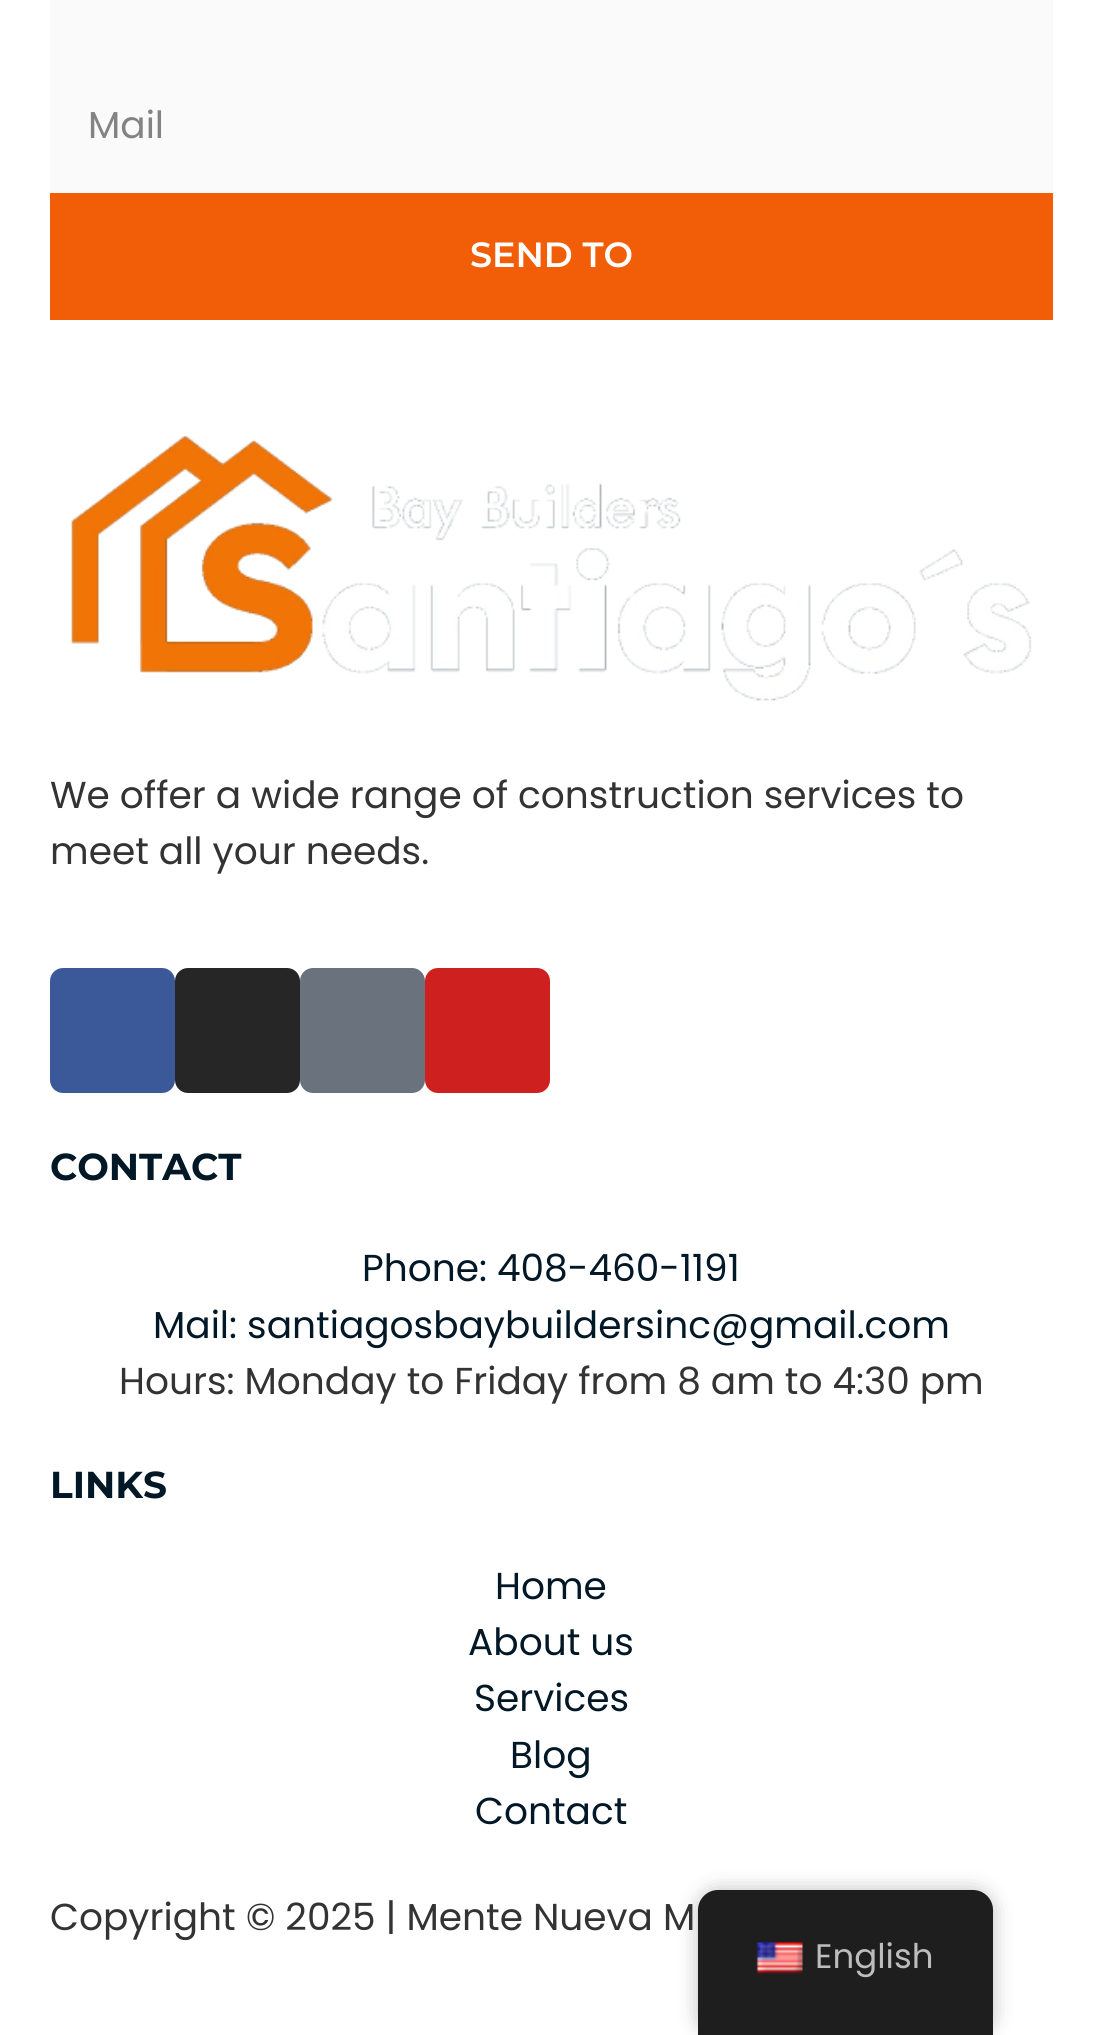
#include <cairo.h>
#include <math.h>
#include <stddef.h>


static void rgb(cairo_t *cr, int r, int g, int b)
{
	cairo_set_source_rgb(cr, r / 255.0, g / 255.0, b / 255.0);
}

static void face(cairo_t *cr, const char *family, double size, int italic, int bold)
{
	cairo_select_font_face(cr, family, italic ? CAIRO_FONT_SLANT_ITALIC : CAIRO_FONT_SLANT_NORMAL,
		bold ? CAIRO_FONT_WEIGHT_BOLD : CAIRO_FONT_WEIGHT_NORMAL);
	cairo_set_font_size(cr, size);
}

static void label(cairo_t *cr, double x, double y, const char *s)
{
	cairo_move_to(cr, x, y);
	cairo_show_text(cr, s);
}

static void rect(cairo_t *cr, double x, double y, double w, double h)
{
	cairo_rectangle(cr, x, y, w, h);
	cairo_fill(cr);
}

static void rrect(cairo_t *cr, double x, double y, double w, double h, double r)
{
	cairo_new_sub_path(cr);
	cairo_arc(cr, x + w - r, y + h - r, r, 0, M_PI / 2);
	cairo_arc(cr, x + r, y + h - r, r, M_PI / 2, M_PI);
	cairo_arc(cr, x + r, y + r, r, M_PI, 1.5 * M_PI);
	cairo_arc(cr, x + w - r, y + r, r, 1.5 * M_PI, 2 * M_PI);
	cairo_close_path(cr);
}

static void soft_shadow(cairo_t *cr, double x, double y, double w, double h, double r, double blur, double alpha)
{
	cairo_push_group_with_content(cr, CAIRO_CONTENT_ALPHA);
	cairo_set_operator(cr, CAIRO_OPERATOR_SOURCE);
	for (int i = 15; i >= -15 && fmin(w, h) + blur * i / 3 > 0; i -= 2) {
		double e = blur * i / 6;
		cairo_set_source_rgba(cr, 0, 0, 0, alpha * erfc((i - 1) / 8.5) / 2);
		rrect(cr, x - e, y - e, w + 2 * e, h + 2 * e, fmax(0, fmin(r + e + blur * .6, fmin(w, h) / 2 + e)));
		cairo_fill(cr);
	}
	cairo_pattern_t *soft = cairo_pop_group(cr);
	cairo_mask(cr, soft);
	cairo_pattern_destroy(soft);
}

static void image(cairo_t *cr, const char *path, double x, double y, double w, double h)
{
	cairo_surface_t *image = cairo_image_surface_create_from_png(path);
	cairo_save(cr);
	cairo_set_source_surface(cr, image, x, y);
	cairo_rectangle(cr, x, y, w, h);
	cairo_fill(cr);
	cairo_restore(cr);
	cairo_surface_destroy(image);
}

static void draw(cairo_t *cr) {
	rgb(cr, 255, 255, 255);
	cairo_paint(cr);
	rgb(cr, 250, 250, 250);
	rect(cr, 50, 0, 1003, 193);
	face(cr, "Poppins", 37.5, 0, 0);
	rgb(cr, 131, 131, 131);
	label(cr, 88, 138, "Mail");
	rgb(cr, 242, 93, 7);
	rect(cr, 50, 193, 1003, 127);
	face(cr, "Montserrat SemiBold", 35, 0, 0);
	rgb(cr, 255, 255, 255);
	label(cr, 470, 267, "SEND TO");
	image(cr, "image0.png", 71, 435, 961, 266);
	face(cr, "Poppins", 37.5, 0, 0);
	rgb(cr, 51, 51, 51);
	label(cr, 50, 808, "We offer a wide range of construction services to");
	label(cr, 50, 864, "meet all your needs.");
	rgb(cr, 59, 89, 152);
	rrect(cr, 50, 968, 125, 125, 13);
	cairo_fill(cr);
	rgb(cr, 38, 38, 38);
	rrect(cr, 175, 968, 125, 125, 13);
	cairo_fill(cr);
	rgb(cr, 105, 114, 125);
	rrect(cr, 300, 968, 125, 125, 13);
	cairo_fill(cr);
	rgb(cr, 205, 32, 31);
	rrect(cr, 425, 968, 125, 125, 13);
	cairo_fill(cr);
	face(cr, "Montserrat", 37.5, 0, 1);
	rgb(cr, 2, 24, 38);
	label(cr, 50, 1180, "CONTACT");
	face(cr, "Poppins", 37.5, 0, 0);
	label(cr, 362, 1281, "Phone: 408-460-1191");
	label(cr, 153, 1338, "Mail: santiagosbaybuildersinc@gmail.com");
	rgb(cr, 51, 51, 51);
	label(cr, 119, 1394, "Hours: Monday to Friday from 8 am to 4:30 pm");
	face(cr, "Montserrat", 37.5, 0, 1);
	rgb(cr, 2, 24, 38);
	label(cr, 50, 1498, "LINKS");
	face(cr, "Poppins", 37.5, 0, 0);
	label(cr, 495, 1599, "Home");
	label(cr, 468, 1655, "About us");
	label(cr, 474, 1711, "Services");
	label(cr, 510, 1768, "Blog");
	label(cr, 475, 1824, "Contact");
	rgb(cr, 51, 51, 51);
	label(cr, 50, 1930, "Copyright © 2025 | Mente Nueva M");
	rgb(cr, 0, 0, 0);
	soft_shadow(cr, 698, 1890, 295, 145, 20, 10, 0.25);
	rgb(cr, 30, 30, 30);
	cairo_new_path(cr);
	cairo_move_to(cr, 718, 1890);
	cairo_line_to(cr, 973, 1890);
	cairo_curve_to(cr, 984, 1890, 993, 1899, 993, 1910);
	cairo_line_to(cr, 993, 2035);
	cairo_line_to(cr, 698, 2035);
	cairo_line_to(cr, 698, 1910);
	cairo_curve_to(cr, 698, 1899, 707, 1890, 718, 1890);
	cairo_close_path(cr);
	cairo_fill(cr);
	image(cr, "image1.png", 756, 1942, 47, 32);
	face(cr, "Poppins", 34, 0, 0);
	rgb(cr, 189, 189, 189);
	label(cr, 815, 1968, "English");
}

int main(void) {
	cairo_surface_t *surface = cairo_image_surface_create(CAIRO_FORMAT_RGB24, 1102, 2035);
	cairo_t *cr = cairo_create(surface);
	cairo_font_options_t *options = cairo_font_options_create();
	cairo_font_options_set_hint_metrics(options, CAIRO_HINT_METRICS_OFF);
	cairo_font_options_set_hint_style(options, CAIRO_HINT_STYLE_NONE);
	cairo_set_font_options(cr, options);
	cairo_set_miter_limit(cr, 4);
	draw(cr);
	cairo_surface_write_to_png(surface, "render.png");
	cairo_font_options_destroy(options);
	cairo_destroy(cr);
	cairo_surface_destroy(surface);
	return 0;
}
